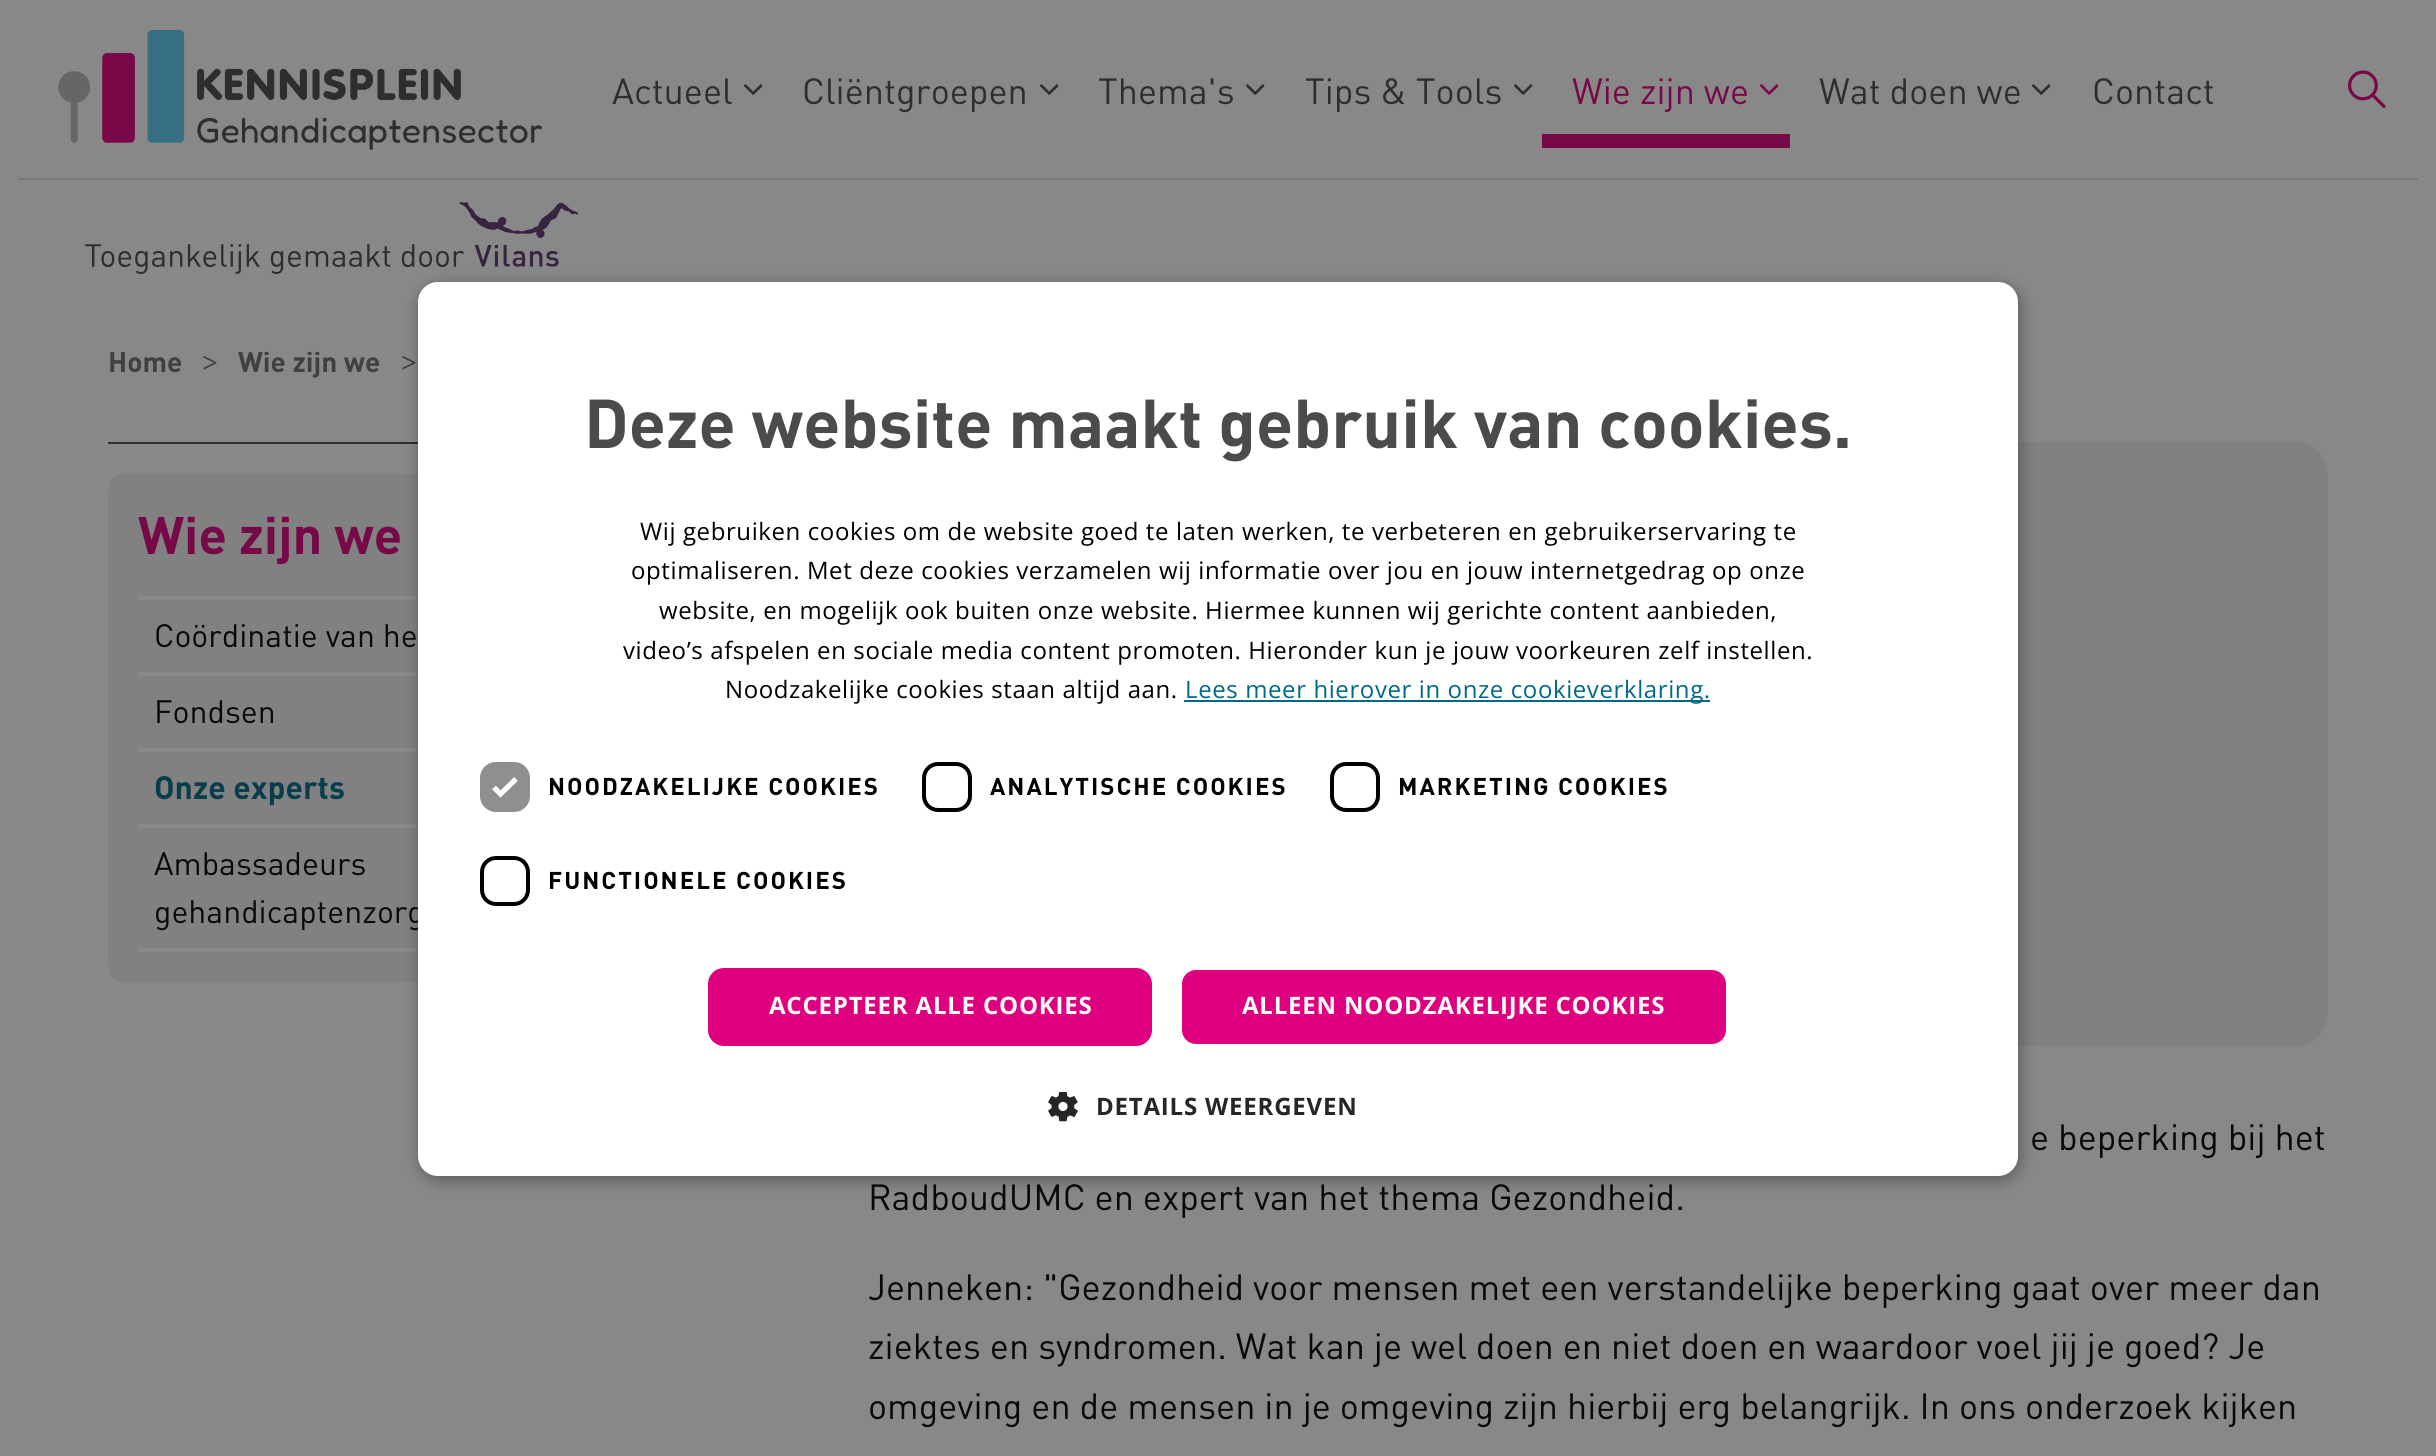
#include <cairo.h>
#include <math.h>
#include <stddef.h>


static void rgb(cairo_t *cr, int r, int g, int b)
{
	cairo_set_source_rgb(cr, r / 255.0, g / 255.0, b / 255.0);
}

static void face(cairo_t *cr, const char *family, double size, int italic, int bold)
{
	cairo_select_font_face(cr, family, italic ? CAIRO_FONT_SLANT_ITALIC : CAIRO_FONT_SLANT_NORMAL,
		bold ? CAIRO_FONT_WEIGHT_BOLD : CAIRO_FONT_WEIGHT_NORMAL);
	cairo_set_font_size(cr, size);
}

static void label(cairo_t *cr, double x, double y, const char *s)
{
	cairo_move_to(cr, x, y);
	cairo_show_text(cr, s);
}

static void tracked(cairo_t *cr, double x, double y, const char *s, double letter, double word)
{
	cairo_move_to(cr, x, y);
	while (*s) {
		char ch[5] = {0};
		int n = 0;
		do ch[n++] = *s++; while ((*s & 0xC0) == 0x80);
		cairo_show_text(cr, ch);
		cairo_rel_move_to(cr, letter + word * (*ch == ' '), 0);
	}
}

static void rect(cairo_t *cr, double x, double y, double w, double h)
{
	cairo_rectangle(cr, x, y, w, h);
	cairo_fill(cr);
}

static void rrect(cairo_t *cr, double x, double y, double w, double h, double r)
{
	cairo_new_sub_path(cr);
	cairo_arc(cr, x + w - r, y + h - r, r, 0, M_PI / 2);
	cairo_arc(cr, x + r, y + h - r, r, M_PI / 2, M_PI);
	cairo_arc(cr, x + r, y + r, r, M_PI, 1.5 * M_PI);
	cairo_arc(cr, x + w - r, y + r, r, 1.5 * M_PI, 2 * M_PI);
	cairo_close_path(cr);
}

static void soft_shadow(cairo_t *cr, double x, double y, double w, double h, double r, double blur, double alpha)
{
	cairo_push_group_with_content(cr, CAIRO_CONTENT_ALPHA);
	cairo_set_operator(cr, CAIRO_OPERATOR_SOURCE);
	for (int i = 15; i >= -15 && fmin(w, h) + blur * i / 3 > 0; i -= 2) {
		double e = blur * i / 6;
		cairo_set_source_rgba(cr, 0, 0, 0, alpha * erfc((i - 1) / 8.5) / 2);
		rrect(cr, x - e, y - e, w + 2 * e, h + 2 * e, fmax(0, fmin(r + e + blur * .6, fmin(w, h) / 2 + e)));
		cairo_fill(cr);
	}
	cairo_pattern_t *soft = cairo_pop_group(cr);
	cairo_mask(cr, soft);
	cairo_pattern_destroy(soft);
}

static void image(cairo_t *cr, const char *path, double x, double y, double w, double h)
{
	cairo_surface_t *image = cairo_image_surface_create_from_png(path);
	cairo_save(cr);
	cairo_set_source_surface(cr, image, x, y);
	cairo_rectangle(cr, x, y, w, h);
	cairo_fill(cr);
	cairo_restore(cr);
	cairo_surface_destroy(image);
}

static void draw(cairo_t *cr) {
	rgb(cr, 136, 136, 136);
	cairo_paint(cr);
	rgb(cr, 122, 122, 122);
	rect(cr, 18, 178, 2400, 2);
	image(cr, "image0.png", 58, 30, 484, 120);
	face(cr, "DIN", 36, 0, 0);
	rgb(cr, 46, 46, 46);
	label(cr, 612, 104, "Actueel");
	image(cr, "image1.png", 744, 84, 19, 11);
	label(cr, 802, 104, "Cliëntgroepen");
	image(cr, "image1.png", 1040, 84, 19, 11);
	label(cr, 1098, 104, "Thema's");
	image(cr, "image1.png", 1246, 84, 19, 11);
	label(cr, 1305, 104, "Tips & Tools");
	image(cr, "image1.png", 1514, 84, 19, 11);
	rgb(cr, 120, 9, 72);
	label(cr, 1572, 104, "Wie zijn we");
	rect(cr, 1542, 134, 248, 14);
	image(cr, "image2.png", 1760, 84, 19, 11);
	rgb(cr, 46, 46, 46);
	label(cr, 1819, 104, "Wat doen we");
	image(cr, "image1.png", 2032, 84, 19, 11);
	label(cr, 2092, 104, "Contact");
	image(cr, "image3.png", 2348, 70, 38, 38);
	image(cr, "image4.png", 85, 201, 494, 73);
	face(cr, "DIN", 28, 0, 1);
	rgb(cr, 64, 64, 64);
	label(cr, 108, 372, "Home");
	face(cr, "Liberation Serif", 28, 0, 1);
	label(cr, 202, 372, ">");
	face(cr, "DIN", 28, 0, 1);
	label(cr, 238, 372, "Wie zijn we");
	face(cr, "Liberation Serif", 28, 0, 1);
	label(cr, 401, 372, ">");
	rgb(cr, 46, 46, 46);
	rect(cr, 108, 442, 310, 2);
	rgb(cr, 129, 129, 129);
	rrect(cr, 108, 474, 510, 508, 16);
	cairo_fill(cr);
	face(cr, "DIN", 52, 0, 1);
	rgb(cr, 120, 9, 72);
	label(cr, 138, 554, "Wie zijn we");
	rgb(cr, 136, 136, 136);
	rect(cr, 138, 596, 280, 4);
	face(cr, "DIN", 32, 0, 0);
	rgb(cr, 9, 9, 9);
	label(cr, 154, 647, "Coördinatie van he");
	rgb(cr, 136, 136, 136);
	rect(cr, 138, 672, 280, 4);
	rgb(cr, 9, 9, 9);
	label(cr, 154, 723, "Fondsen");
	rgb(cr, 136, 136, 136);
	rect(cr, 138, 748, 280, 4);
	face(cr, "DIN", 32, 0, 1);
	rgb(cr, 9, 61, 76);
	label(cr, 154, 799, "Onze experts");
	rgb(cr, 136, 136, 136);
	rect(cr, 138, 824, 280, 4);
	rect(cr, 138, 948, 280, 4);
	face(cr, "DIN", 32, 0, 0);
	rgb(cr, 9, 9, 9);
	label(cr, 154, 875, "Ambassadeurs");
	label(cr, 154, 923, "gehandicaptenzorg");
	rgb(cr, 129, 129, 129);
	rrect(cr, 868, 442, 1460, 604, 32);
	cairo_fill(cr);
	face(cr, "DIN", 36, 0, 0);
	rgb(cr, 9, 9, 9);
	label(cr, 2030, 1150, "e beperking bij het");
	label(cr, 868, 1210, "RadboudUMC en expert van het thema Gezondheid.");
	label(cr, 868, 1300, "Jenneken: \"Gezondheid voor mensen met een verstandelijke beperking gaat over meer dan");
	label(cr, 868, 1359, "ziektes en syndromen. Wat kan je wel doen en niet doen en waardoor voel jij je goed? Je");
	label(cr, 868, 1419, "omgeving en de mensen in je omgeving zijn hierbij erg belangrijk. In ons onderzoek kijken");
	rgb(cr, 0, 0, 0);
	soft_shadow(cr, 420, 286, 1600, 894, 20, 8, 0.35);
	rgb(cr, 255, 255, 255);
	rrect(cr, 418, 282, 1600, 894, 20);
	cairo_fill(cr);
	face(cr, "DIN", 68, 0, 1);
	rgb(cr, 75, 75, 75);
	label(cr, 584, 448, "Deze website maakt gebruik van cookies.");
	face(cr, "Open Sans", 24, 0, 0);
	rgb(cr, 0, 0, 0);
	tracked(cr, 640, 540, "Wij gebruiken cookies om de website goed te laten werken, te verbeteren en gebruikerservaring te", 0.6, 0);
	tracked(cr, 631, 579, "optimaliseren. Met deze cookies verzamelen wij informatie over jou en jouw internetgedrag op onze", 0.6, 0);
	tracked(cr, 659, 619, "website, en mogelijk ook buiten onze website. Hiermee kunnen wij gerichte content aanbieden,", 0.6, 0);
	tracked(cr, 623, 659, "video’s afspelen en sociale media content promoten. Hieronder kun je jouw voorkeuren zelf instellen.", 0.6, 0);
	tracked(cr, 725, 698, "Noodzakelijke cookies staan altijd aan.", 0.6, 0);
	rgb(cr, 0, 105, 135);
	rect(cr, 1184, 700, 526, 2);
	tracked(cr, 1185, 698, "Lees meer hierover in onze cookieverklaring.", 0.6, 0);
	rgb(cr, 143, 143, 143);
	rrect(cr, 480, 762, 50, 50, 16);
	cairo_fill(cr);
	cairo_new_path(cr);
	cairo_move_to(cr, 494, 787.5);
	cairo_line_to(cr, 500.5, 794);
	cairo_line_to(cr, 516, 779);
	rgb(cr, 255, 255, 255);
	cairo_set_line_width(cr, 5.2);
	cairo_stroke(cr);
	face(cr, "DIN", 24, 0, 1);
	rgb(cr, 0, 0, 0);
	tracked(cr, 548, 795, "NOODZAKELIJKE COOKIES", 2, 0);
	rrect(cr, 924, 764, 46, 46, 14);
	cairo_set_line_width(cr, 4);
	cairo_stroke(cr);
	tracked(cr, 990, 795, "ANALYTISCHE COOKIES", 2, 0);
	rrect(cr, 1332, 764, 46, 46, 14);
	cairo_stroke(cr);
	tracked(cr, 1398, 795, "MARKETING COOKIES", 2, 0);
	rrect(cr, 482, 858, 46, 46, 14);
	cairo_stroke(cr);
	tracked(cr, 548, 889, "FUNCTIONELE COOKIES", 2, 0);
	rgb(cr, 222, 0, 126);
	rrect(cr, 708, 968, 444, 78, 16);
	cairo_fill(cr);
	face(cr, "Open Sans", 24, 0, 1);
	rgb(cr, 255, 255, 255);
	tracked(cr, 769, 1014, "ACCEPTEER ALLE COOKIES", 0.8, 0);
	rgb(cr, 222, 0, 126);
	rrect(cr, 1181, 969, 546, 76, 15);
	cairo_fill_preserve(cr);
	rgb(cr, 255, 255, 255);
	cairo_set_line_width(cr, 2);
	cairo_stroke(cr);
	tracked(cr, 1242, 1014, "ALLEEN NOODZAKELIJKE COOKIES", 0.8, 0);
	image(cr, "image5.png", 1048, 1092, 30, 30);
	rgb(cr, 38, 38, 38);
	tracked(cr, 1096, 1115, "DETAILS WEERGEVEN", 0.8, 0);
}

int main(void) {
	cairo_surface_t *surface = cairo_image_surface_create(CAIRO_FORMAT_RGB24, 2436, 1456);
	cairo_t *cr = cairo_create(surface);
	cairo_font_options_t *options = cairo_font_options_create();
	cairo_font_options_set_hint_metrics(options, CAIRO_HINT_METRICS_OFF);
	cairo_font_options_set_hint_style(options, CAIRO_HINT_STYLE_NONE);
	cairo_set_font_options(cr, options);
	cairo_set_miter_limit(cr, 4);
	draw(cr);
	cairo_surface_write_to_png(surface, "render.png");
	cairo_font_options_destroy(options);
	cairo_destroy(cr);
	cairo_surface_destroy(surface);
	return 0;
}
